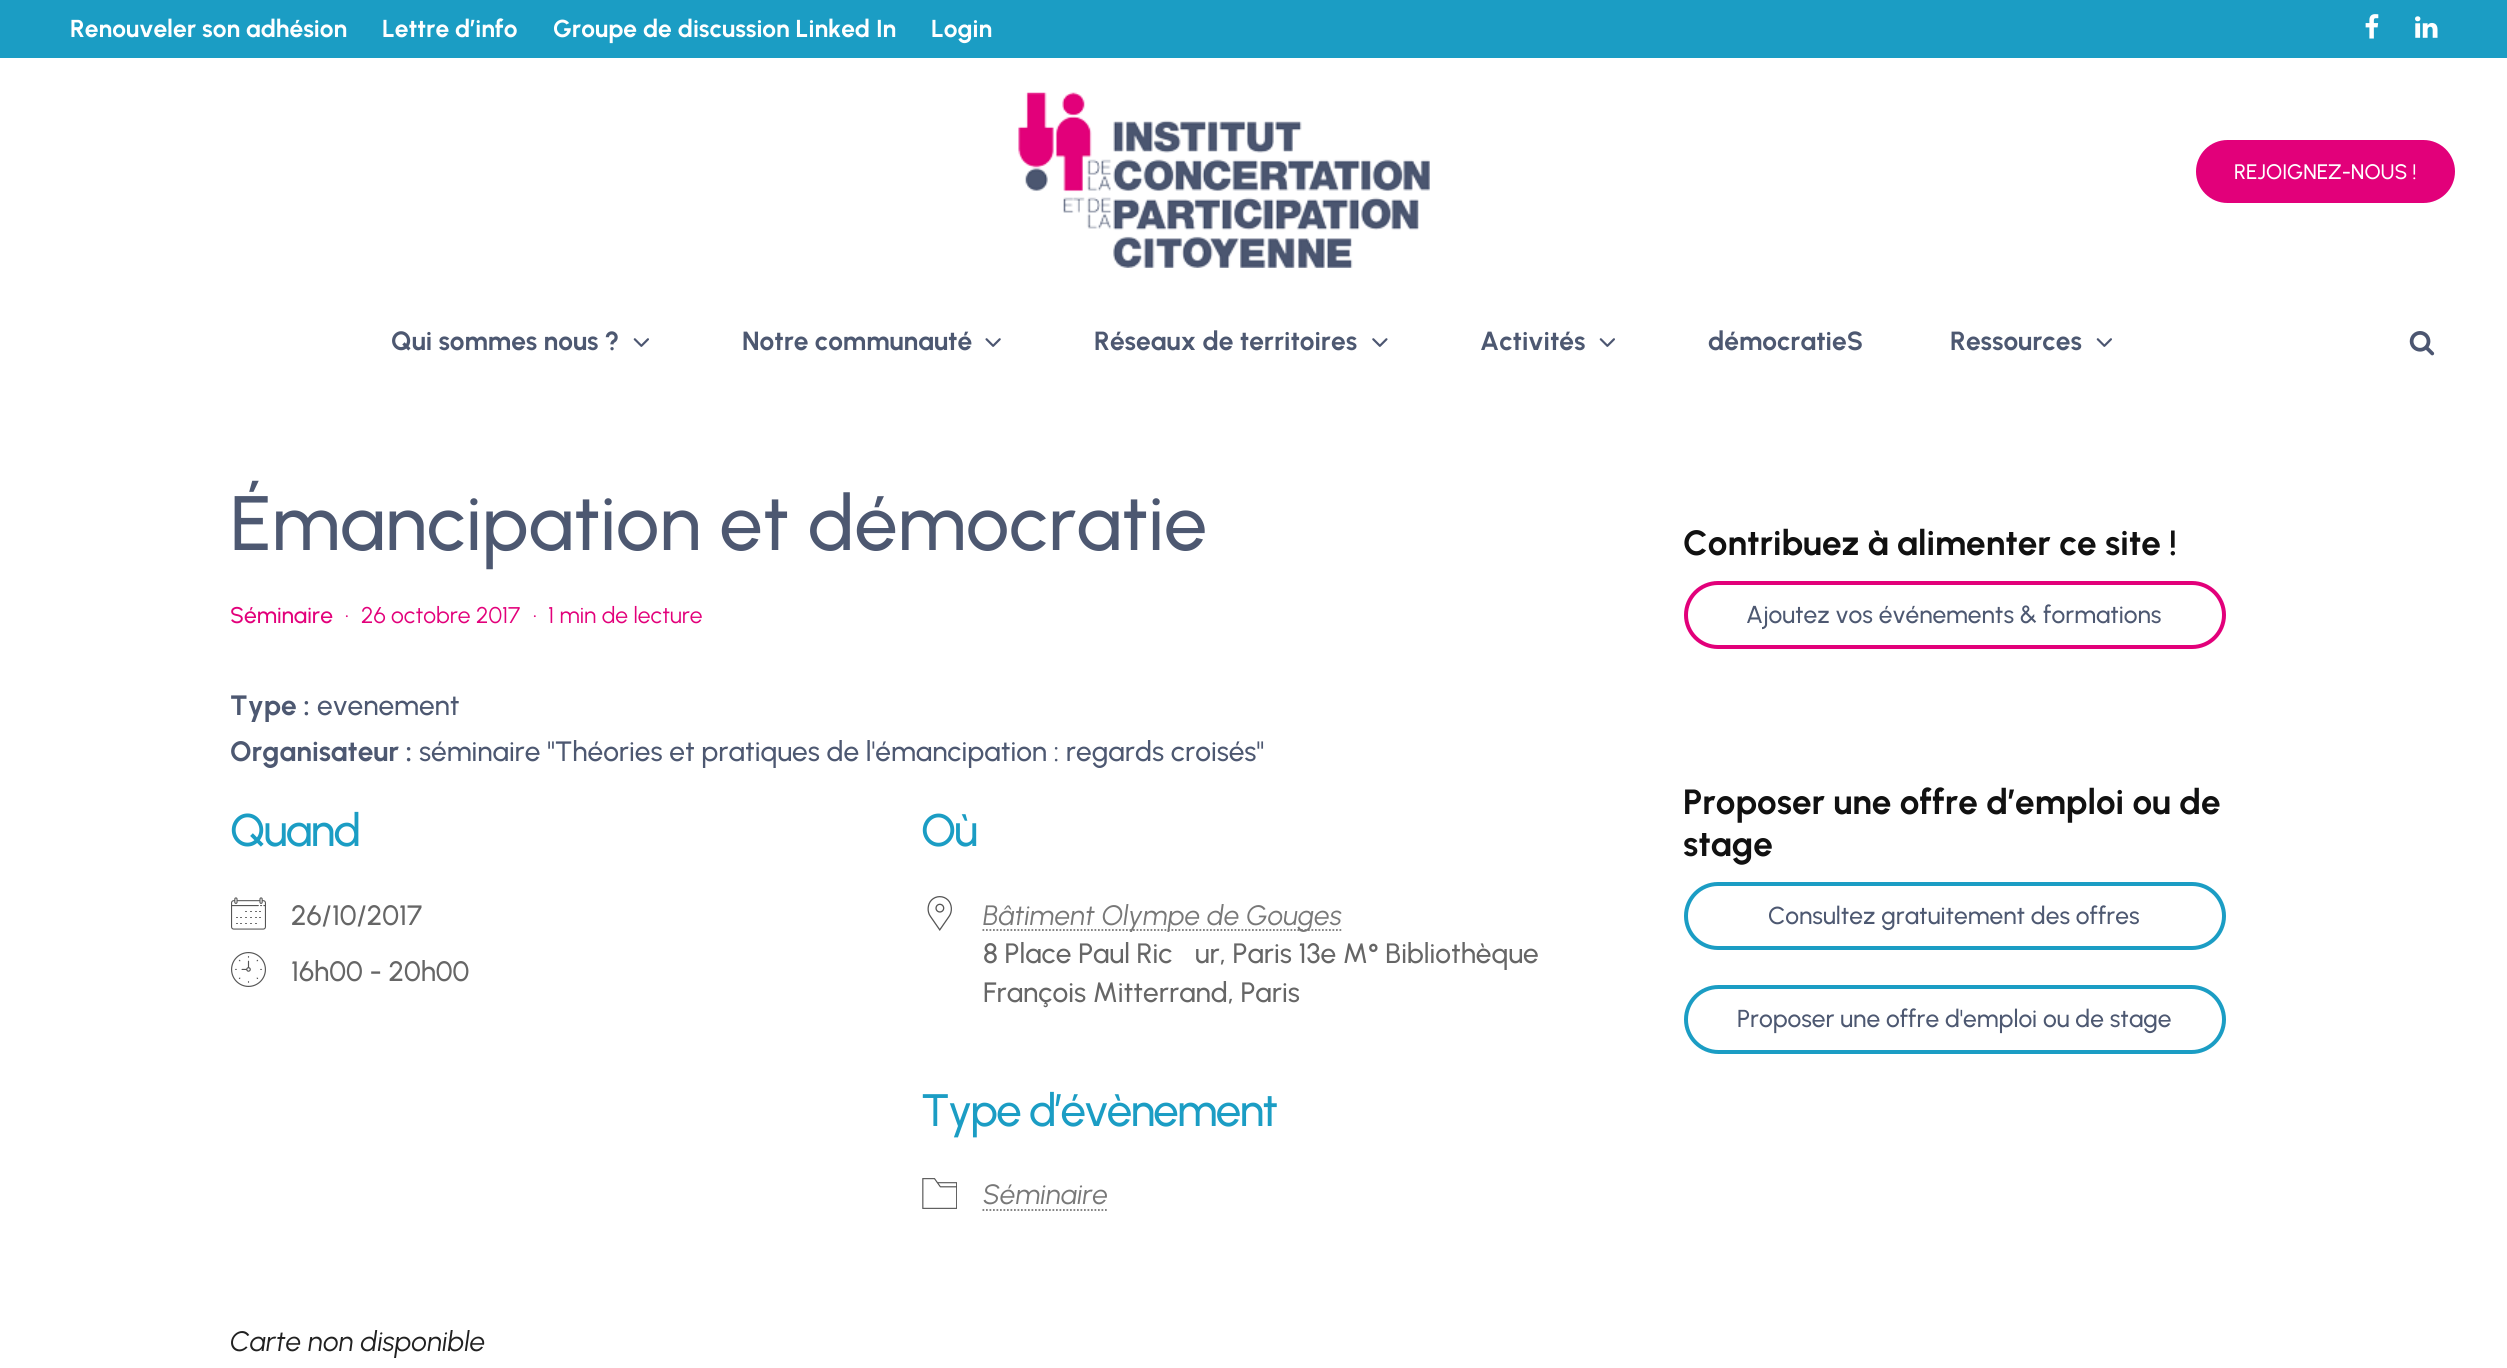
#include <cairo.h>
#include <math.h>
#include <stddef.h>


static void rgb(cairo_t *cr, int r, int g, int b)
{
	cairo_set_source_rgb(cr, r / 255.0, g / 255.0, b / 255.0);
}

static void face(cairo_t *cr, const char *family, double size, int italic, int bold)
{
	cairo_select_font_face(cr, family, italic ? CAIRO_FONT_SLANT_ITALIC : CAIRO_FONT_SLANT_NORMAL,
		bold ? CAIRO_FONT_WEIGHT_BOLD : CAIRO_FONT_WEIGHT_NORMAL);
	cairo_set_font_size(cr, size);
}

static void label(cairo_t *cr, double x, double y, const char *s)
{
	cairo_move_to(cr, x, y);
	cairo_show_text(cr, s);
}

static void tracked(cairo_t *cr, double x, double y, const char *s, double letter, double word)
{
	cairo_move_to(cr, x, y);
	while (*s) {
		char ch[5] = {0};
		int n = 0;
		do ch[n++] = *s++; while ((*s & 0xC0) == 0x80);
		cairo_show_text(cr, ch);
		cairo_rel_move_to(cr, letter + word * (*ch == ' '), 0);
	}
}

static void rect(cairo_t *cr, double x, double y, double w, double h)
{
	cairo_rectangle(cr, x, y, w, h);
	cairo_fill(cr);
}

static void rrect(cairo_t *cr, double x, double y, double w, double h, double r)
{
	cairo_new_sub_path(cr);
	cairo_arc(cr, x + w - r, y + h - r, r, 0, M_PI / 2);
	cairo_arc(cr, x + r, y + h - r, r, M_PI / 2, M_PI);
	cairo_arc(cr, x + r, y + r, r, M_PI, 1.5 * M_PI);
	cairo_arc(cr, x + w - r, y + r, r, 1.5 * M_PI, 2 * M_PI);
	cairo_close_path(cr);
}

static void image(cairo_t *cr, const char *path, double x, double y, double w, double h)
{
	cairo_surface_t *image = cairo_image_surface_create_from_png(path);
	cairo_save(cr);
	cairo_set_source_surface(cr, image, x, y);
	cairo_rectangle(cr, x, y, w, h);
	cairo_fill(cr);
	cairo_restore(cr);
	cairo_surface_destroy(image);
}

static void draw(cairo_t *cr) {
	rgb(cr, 255, 255, 255);
	cairo_paint(cr);
	rgb(cr, 27, 157, 196);
	rect(cr, 0, 0, 2507, 58);
	face(cr, "Urbanist", 24.5, 0, 1);
	rgb(cr, 255, 255, 255);
	label(cr, 70, 37, "Renouveler son adhésion");
	label(cr, 382, 37, "Lettre d’info");
	label(cr, 553, 37, "Groupe de discussion Linked In");
	label(cr, 931, 37, "Login");
	image(cr, "image0.png", 2365, 14, 14, 25);
	image(cr, "image1.png", 2415, 16, 23, 22);
	image(cr, "image2.png", 1018, 92, 412, 176);
	rgb(cr, 226, 0, 122);
	rrect(cr, 2196, 140, 259, 63, 31.5);
	cairo_fill(cr);
	face(cr, "Urbanist Medium", 21, 0, 0);
	rgb(cr, 255, 255, 255);
	label(cr, 2234, 179, "REJOIGNEZ-NOUS !");
	face(cr, "Urbanist", 26.25, 0, 1);
	rgb(cr, 77, 88, 113);
	label(cr, 391, 350, "Qui sommes nous ?");
	image(cr, "image3.png", 633, 338, 16, 9);
	label(cr, 742, 350, "Notre communauté");
	image(cr, "image4.png", 985, 338, 16, 9);
	label(cr, 1094, 350, "Réseaux de territoires");
	image(cr, "image5.png", 1372, 338, 16, 9);
	label(cr, 1480, 350, "Activités");
	image(cr, "image3.png", 1599, 338, 16, 9);
	label(cr, 1708, 350, "démocratieS");
	label(cr, 1950, 350, "Ressources");
	image(cr, "image3.png", 2096, 338, 16, 9);
	image(cr, "image6.png", 2409, 331, 26, 25);
	face(cr, "Urbanist Medium", 77, 0, 0);
	label(cr, 230, 550, "Émancipation et démocratie");
	face(cr, "Urbanist Medium", 22.75, 0, 0);
	rgb(cr, 226, 0, 122);
	label(cr, 230, 623, "Séminaire");
	face(cr, "Urbanist", 22.75, 0, 0);
	label(cr, 345, 623, "·");
	label(cr, 361, 623, "26 octobre 2017");
	label(cr, 533, 623, "·");
	label(cr, 548, 623, "1 min de lecture");
	face(cr, "Urbanist", 28, 0, 1);
	rgb(cr, 77, 88, 113);
	label(cr, 230, 715, "Type :");
	face(cr, "Urbanist Medium", 28, 0, 0);
	label(cr, 317, 715, "evenement");
	face(cr, "Urbanist", 28, 0, 1);
	label(cr, 230, 761, "Organisateur :");
	face(cr, "Urbanist Medium", 28, 0, 0);
	label(cr, 419, 761, "séminaire \"Théories et pratiques de l'émancipation : regards croisés\"");
	face(cr, "Urbanist Medium", 45.5, 0, 0);
	rgb(cr, 27, 157, 196);
	tracked(cr, 230, 846, "Quand", -1.75, 0);
	image(cr, "image7.png", 231, 897, 35, 33);
	face(cr, "Urbanist Medium", 28, 0, 0);
	rgb(cr, 102, 102, 102);
	label(cr, 291, 925, "26/10/2017");
	image(cr, "image8.png", 231, 952, 35, 35);
	label(cr, 291, 981, "16h00 - 20h00");
	face(cr, "Urbanist Medium", 45.5, 0, 0);
	rgb(cr, 27, 157, 196);
	tracked(cr, 921, 846, "Où", -1.75, 0);
	image(cr, "image9.png", 927, 896, 25, 35);
	cairo_new_path(cr);
	cairo_move_to(cr, 982.5, 930);
	cairo_line_to(cr, 1341.5, 930);
	rgb(cr, 120, 120, 120);
	cairo_set_line_width(cr, 1.8);
	cairo_set_dash(cr, (double[]){1.75, 1.75}, 2, 0);
	cairo_stroke(cr);
	face(cr, "Urbanist", 28, 1, 0);
	label(cr, 983, 925, "Bâtiment Olympe de Gouges");
	face(cr, "Urbanist Medium", 28, 0, 0);
	rgb(cr, 102, 102, 102);
	label(cr, 983, 963, "8 Place Paul Ric");
	label(cr, 1195, 963, "ur, Paris 13e M° Bibliothèque");
	label(cr, 983, 1002, "François Mitterrand, Paris");
	face(cr, "Urbanist Medium", 45.5, 0, 0);
	rgb(cr, 27, 157, 196);
	tracked(cr, 921, 1126, "Type d’évènement", -1.75, 0);
	image(cr, "image10.png", 922, 1178, 35, 31);
	face(cr, "Urbanist", 28, 1, 0);
	rgb(cr, 120, 120, 120);
	label(cr, 983, 1204, "Séminaire");
	cairo_new_path(cr);
	cairo_move_to(cr, 982.5, 1210);
	cairo_line_to(cr, 1108, 1210);
	cairo_stroke(cr);
	rgb(cr, 33, 33, 33);
	label(cr, 230, 1351, "Carte non disponible");
	face(cr, "Urbanist", 35, 0, 1);
	rgb(cr, 17, 17, 17);
	label(cr, 1683, 555, "Contribuez à alimenter ce site !");
	rrect(cr, 1686, 583, 538, 64, 32);
	rgb(cr, 226, 0, 122);
	cairo_set_line_width(cr, 4);
	cairo_set_dash(cr, NULL, 0, 0);
	cairo_stroke(cr);
	face(cr, "Urbanist Medium", 24.5, 0, 0);
	rgb(cr, 77, 88, 113);
	label(cr, 1746, 623, "Ajoutez vos événements & formations");
	face(cr, "Urbanist", 35, 0, 1);
	rgb(cr, 17, 17, 17);
	label(cr, 1683, 814, "Proposer une offre d’emploi ou de");
	label(cr, 1683, 856, "stage");
	rrect(cr, 1686, 884, 538, 64, 32);
	rgb(cr, 27, 157, 196);
	cairo_stroke(cr);
	face(cr, "Urbanist Medium", 24.5, 0, 0);
	rgb(cr, 77, 88, 113);
	label(cr, 1768, 924, "Consultez gratuitement des offres");
	rrect(cr, 1686, 987, 538, 65, 32.5);
	rgb(cr, 27, 157, 196);
	cairo_stroke(cr);
	rgb(cr, 77, 88, 113);
	label(cr, 1737, 1027, "Proposer une offre d'emploi ou de stage");
}

int main(void) {
	cairo_surface_t *surface = cairo_image_surface_create(CAIRO_FORMAT_RGB24, 2507, 1368);
	cairo_t *cr = cairo_create(surface);
	cairo_font_options_t *options = cairo_font_options_create();
	cairo_font_options_set_hint_metrics(options, CAIRO_HINT_METRICS_OFF);
	cairo_font_options_set_hint_style(options, CAIRO_HINT_STYLE_NONE);
	cairo_set_font_options(cr, options);
	cairo_set_miter_limit(cr, 4);
	draw(cr);
	cairo_surface_write_to_png(surface, "render.png");
	cairo_font_options_destroy(options);
	cairo_destroy(cr);
	cairo_surface_destroy(surface);
	return 0;
}
